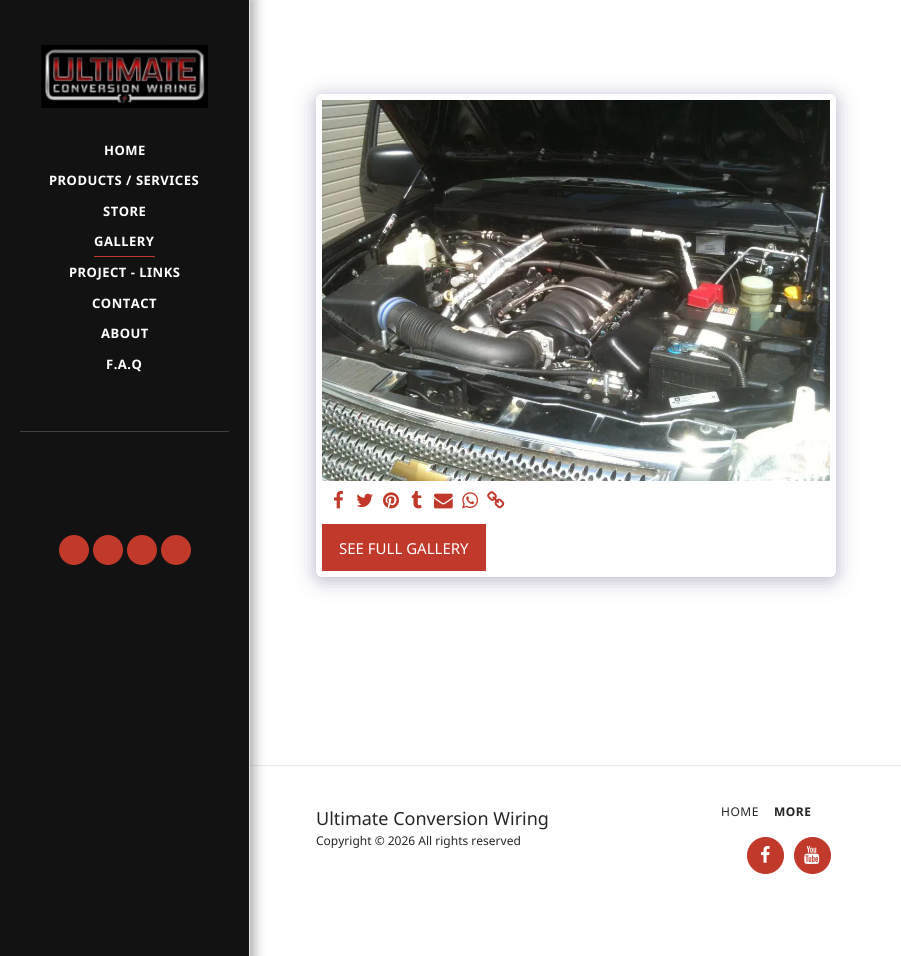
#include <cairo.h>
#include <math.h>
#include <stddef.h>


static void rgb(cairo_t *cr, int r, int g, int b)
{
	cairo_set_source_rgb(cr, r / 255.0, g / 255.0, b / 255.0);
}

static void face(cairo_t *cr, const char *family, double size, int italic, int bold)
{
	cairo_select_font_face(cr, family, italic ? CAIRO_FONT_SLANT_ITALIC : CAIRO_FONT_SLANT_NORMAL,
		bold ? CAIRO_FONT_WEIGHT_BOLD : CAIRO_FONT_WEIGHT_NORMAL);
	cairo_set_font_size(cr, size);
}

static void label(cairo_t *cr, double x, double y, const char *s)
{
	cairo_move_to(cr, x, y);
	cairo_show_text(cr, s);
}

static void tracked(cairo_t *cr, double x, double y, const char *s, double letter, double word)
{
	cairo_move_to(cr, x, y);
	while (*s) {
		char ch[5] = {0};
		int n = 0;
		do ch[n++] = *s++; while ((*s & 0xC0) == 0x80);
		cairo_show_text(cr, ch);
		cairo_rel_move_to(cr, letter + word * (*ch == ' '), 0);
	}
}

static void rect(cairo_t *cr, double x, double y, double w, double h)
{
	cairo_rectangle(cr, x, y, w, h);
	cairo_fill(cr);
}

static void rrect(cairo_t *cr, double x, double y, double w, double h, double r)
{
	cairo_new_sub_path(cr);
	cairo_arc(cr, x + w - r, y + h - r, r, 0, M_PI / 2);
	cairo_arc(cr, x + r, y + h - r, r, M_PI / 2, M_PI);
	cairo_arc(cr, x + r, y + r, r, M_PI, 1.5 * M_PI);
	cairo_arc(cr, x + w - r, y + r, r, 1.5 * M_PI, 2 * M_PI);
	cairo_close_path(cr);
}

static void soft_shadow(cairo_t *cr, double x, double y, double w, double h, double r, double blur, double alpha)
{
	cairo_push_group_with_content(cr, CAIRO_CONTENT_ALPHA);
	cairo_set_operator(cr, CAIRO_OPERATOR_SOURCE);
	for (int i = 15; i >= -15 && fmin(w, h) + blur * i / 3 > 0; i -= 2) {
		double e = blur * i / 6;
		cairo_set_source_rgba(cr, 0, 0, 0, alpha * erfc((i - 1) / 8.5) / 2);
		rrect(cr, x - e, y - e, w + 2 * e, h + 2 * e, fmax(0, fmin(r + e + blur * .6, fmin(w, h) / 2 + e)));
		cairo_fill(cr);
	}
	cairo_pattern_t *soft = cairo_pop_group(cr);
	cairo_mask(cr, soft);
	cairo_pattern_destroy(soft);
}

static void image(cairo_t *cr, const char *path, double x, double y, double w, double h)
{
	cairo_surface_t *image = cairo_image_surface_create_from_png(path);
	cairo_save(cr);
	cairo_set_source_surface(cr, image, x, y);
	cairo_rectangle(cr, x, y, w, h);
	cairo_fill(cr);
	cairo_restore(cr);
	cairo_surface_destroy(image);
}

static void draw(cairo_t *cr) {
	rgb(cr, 255, 255, 255);
	cairo_paint(cr);
	rgb(cr, 235, 235, 235);
	rect(cr, 250, 765, 651, 1);
	rgb(cr, 0, 0, 0);
	soft_shadow(cr, 0, -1, 254, 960, 0, 6, 0.35);
	rgb(cr, 18, 18, 18);
	rect(cr, 0, 0, 249, 956);
	rgb(cr, 235, 235, 235);
	rect(cr, 249, 0, 1, 956);
	image(cr, "image0.png", 41, 45, 167, 63);
	face(cr, "Noto Sans", 13, 0, 1);
	rgb(cr, 255, 255, 255);
	tracked(cr, 104, 155, "HOME", 0.5, 0);
	tracked(cr, 49, 185, "PRODUCTS / SERVICES", 0.5, 0);
	tracked(cr, 103, 216, "STORE", 0.5, 0);
	rgb(cr, 192, 57, 43);
	rect(cr, 94, 256, 61, 1);
	rgb(cr, 255, 255, 255);
	tracked(cr, 94, 246, "GALLERY", 0.5, 0);
	tracked(cr, 69, 277, "PROJECT - LINKS", 0.5, 0);
	tracked(cr, 92, 308, "CONTACT", 0.5, 0);
	tracked(cr, 101, 338, "ABOUT", 0.5, 0);
	tracked(cr, 106, 369, "F.A.Q", 0.5, 0);
	rgb(cr, 65, 65, 65);
	rect(cr, 20, 431, 209, 1);
	rgb(cr, 192, 57, 43);
	cairo_new_path(cr);
	cairo_arc(cr, 74, 550, 15, 0, 2 * M_PI);
	cairo_fill(cr);
	cairo_arc(cr, 108, 550, 15, 0, 2 * M_PI);
	cairo_fill(cr);
	cairo_arc(cr, 142, 550, 15, 0, 2 * M_PI);
	cairo_fill(cr);
	cairo_arc(cr, 176, 550, 15, 0, 2 * M_PI);
	cairo_fill(cr);
	rgb(cr, 77, 63, 122);
	soft_shadow(cr, 316, 97, 520, 483, 6, 10, 0.4);
	rgb(cr, 255, 255, 255);
	rrect(cr, 316, 94, 520, 483, 6);
	cairo_fill(cr);
	image(cr, "image1.png", 322, 100, 508, 381);
	image(cr, "image2.png", 334, 491, 10, 18);
	image(cr, "image3.png", 356, 493, 17, 15);
	image(cr, "image4.png", 383, 492, 16, 17);
	image(cr, "image5.png", 411, 491, 11, 18);
	image(cr, "image6.png", 434, 493, 19, 16);
	image(cr, "image7.png", 462, 492, 16, 17);
	image(cr, "image8.png", 487, 491, 18, 18);
	rgb(cr, 192, 57, 43);
	rect(cr, 322, 524, 164, 47);
	face(cr, "Noto Sans", 15, 0, 0);
	rgb(cr, 255, 255, 255);
	label(cr, 339, 554, "SEE FULL GALLERY");
	face(cr, "Noto Sans", 18, 0, 0);
	rgb(cr, 37, 37, 37);
	label(cr, 316, 825, "Ultimate Conversion Wiring");
	face(cr, "Noto Sans", 12, 0, 0);
	label(cr, 316, 845, "Copyright © 2026 All rights reserved");
	tracked(cr, 721, 816, "HOME", 0.5, 0);
	face(cr, "Noto Sans", 12, 0, 1);
	tracked(cr, 774, 816, "MORE", 0.5, 0);
	rgb(cr, 192, 57, 43);
	cairo_new_path(cr);
	cairo_arc(cr, 765.5, 855.5, 18, 0, 2 * M_PI);
	cairo_fill_preserve(cr);
	cairo_set_line_width(cr, 1);
	cairo_stroke(cr);
	image(cr, "image9.png", 760, 846, 10, 17);
	cairo_arc(cr, 812.5, 855.5, 18, 0, 2 * M_PI);
	cairo_fill_preserve(cr);
	cairo_stroke(cr);
	image(cr, "image10.png", 804, 846, 16, 18);
}

int main(void) {
	cairo_surface_t *surface = cairo_image_surface_create(CAIRO_FORMAT_RGB24, 901, 956);
	cairo_t *cr = cairo_create(surface);
	cairo_font_options_t *options = cairo_font_options_create();
	cairo_font_options_set_hint_metrics(options, CAIRO_HINT_METRICS_OFF);
	cairo_font_options_set_hint_style(options, CAIRO_HINT_STYLE_NONE);
	cairo_set_font_options(cr, options);
	cairo_set_miter_limit(cr, 4);
	draw(cr);
	cairo_surface_write_to_png(surface, "render.png");
	cairo_font_options_destroy(options);
	cairo_destroy(cr);
	cairo_surface_destroy(surface);
	return 0;
}
